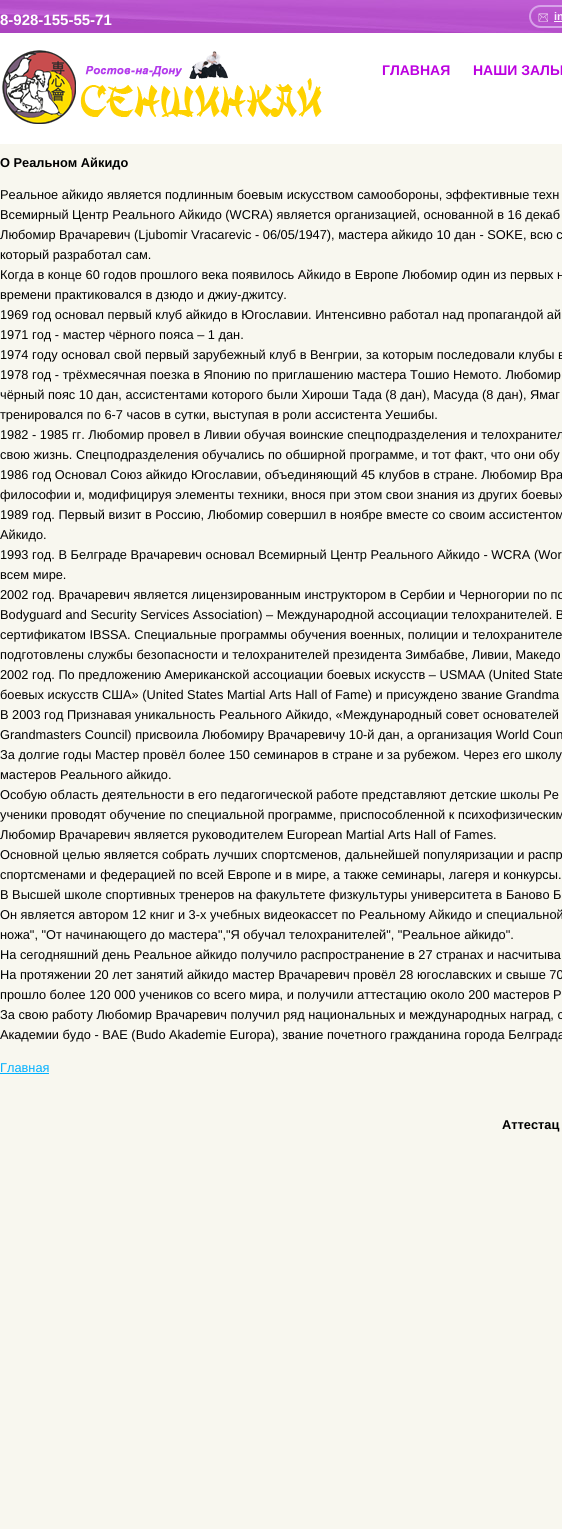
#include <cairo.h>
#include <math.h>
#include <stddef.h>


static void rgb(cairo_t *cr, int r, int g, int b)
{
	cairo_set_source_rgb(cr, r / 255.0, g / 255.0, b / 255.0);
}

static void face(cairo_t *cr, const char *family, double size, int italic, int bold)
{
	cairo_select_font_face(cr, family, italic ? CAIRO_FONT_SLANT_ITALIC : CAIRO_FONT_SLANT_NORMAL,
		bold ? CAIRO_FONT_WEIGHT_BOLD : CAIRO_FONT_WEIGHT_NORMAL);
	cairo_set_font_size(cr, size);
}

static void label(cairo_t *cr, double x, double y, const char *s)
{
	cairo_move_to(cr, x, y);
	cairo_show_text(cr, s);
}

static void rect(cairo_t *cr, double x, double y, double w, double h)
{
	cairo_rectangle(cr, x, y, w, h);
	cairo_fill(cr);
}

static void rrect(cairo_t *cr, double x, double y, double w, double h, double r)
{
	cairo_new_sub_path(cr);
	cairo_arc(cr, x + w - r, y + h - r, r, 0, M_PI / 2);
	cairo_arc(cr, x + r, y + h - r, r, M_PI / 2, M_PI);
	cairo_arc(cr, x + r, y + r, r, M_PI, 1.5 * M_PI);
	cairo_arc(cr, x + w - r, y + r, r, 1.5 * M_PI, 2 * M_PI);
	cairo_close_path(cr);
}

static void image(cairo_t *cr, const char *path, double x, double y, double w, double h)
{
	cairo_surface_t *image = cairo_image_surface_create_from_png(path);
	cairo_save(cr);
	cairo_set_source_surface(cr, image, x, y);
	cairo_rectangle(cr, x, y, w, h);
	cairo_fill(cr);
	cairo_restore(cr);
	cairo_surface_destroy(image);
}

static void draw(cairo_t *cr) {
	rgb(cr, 248, 247, 239);
	cairo_paint(cr);
	rgb(cr, 255, 255, 255);
	rect(cr, 0, 33, 562, 111);
	image(cr, "image0.png", 0, 0, 562, 33);
	face(cr, "Liberation Sans", 15, 0, 1);
	label(cr, 0, 25, "8-928-155-55-71");
	image(cr, "image1.png", 538, 13, 10, 9);
	rrect(cr, 530, 6, 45, 21, 10.5);
	rgb(cr, 215, 162, 233);
	cairo_stroke(cr);
	face(cr, "Liberation Sans", 11, 0, 1);
	rgb(cr, 252, 240, 255);
	label(cr, 554, 20, "in");
	rect(cr, 554, 21, 8, 1);
	image(cr, "image2.png", 2, 50, 320, 74);
	face(cr, "Liberation Sans", 14, 0, 1);
	rgb(cr, 188, 0, 224);
	label(cr, 382, 75, "ГЛАВНАЯ");
	label(cr, 473, 75, "НАШИ ЗАЛЫ");
	face(cr, "Liberation Sans", 12.8, 0, 1);
	rgb(cr, 0, 0, 0);
	label(cr, 0, 167, "О Реальном Айкидо");
	face(cr, "Liberation Sans", 12.8, 0, 0);
	label(cr, 0, 199, "Реальное айкидо является подлинным боевым искусством самообороны, эффективные техн");
	label(cr, 0, 219, "Всемирный Центр Реального Айкидо (WCRA) является организацией, основанной в 16 декаб");
	label(cr, 0, 239, "Любомир Врачаревич (Ljubomir Vracarevic - 06/05/1947), мастера айкидо 10 дан - SOKE, всю с");
	label(cr, 0, 259, "который разработал сам.");
	label(cr, 0, 279, "Когда в конце 60 годов прошлого века появилось Айкидо в Европе Любомир один из первых н");
	label(cr, 0, 299, "времени практиковался в дзюдо и джиу-джитсу.");
	label(cr, 0, 319, "1969 год основал первый клуб айкидо в Югославии. Интенсивно работал над пропагандой ай");
	label(cr, 0, 339, "1971 год - мастер чёрного пояса – 1 дан.");
	label(cr, 0, 359, "1974 году основал свой первый зарубежный клуб в Венгрии, за которым последовали клубы в");
	label(cr, 0, 379, "1978 год - трёхмесячная поезка в Японию по приглашению мастера Тошио Немото. Любомир");
	label(cr, 0, 399, "чёрный пояс 10 дан, ассистентами которого были Хироши Тада (8 дан), Масуда (8 дан), Ямаг");
	label(cr, 0, 419, "тренировался по 6-7 часов в сутки, выступая в роли ассистента Уешибы.");
	label(cr, 0, 439, "1982 - 1985 гг. Любомир провел в Ливии обучая воинские спецподразделения и телохранител");
	label(cr, 0, 459, "свою жизнь. Спецподразделения обучались по обширной программе, и тот факт, что они обу");
	label(cr, 0, 479, "1986 год Основал Союз айкидо Югославии, объединяющий 45 клубов в стране. Любомир Вра");
	label(cr, 0, 499, "философии и, модифицируя элементы техники, внося при этом свои знания из других боевых");
	label(cr, 0, 519, "1989 год. Первый визит в Россию, Любомир совершил в ноябре вместе со своим ассистентом");
	label(cr, 0, 539, "Айкидо.");
	label(cr, 0, 559, "1993 год. В Белграде Врачаревич основал Всемирный Центр Реального Айкидо - WCRA (Wor");
	label(cr, 0, 579, "всем мире.");
	label(cr, 0, 599, "2002 год. Врачаревич является лицензированным инструктором в Сербии и Черногории по по");
	label(cr, 0, 619, "Bodyguard and Security Services Association) – Международной ассоциации телохранителей. В");
	label(cr, 0, 639, "сертификатом IBSSA. Специальные программы обучения военных, полиции и телохранителе");
	label(cr, 0, 659, "подготовлены службы безопасности и телохранителей президента Зимбабве, Ливии, Македо");
	label(cr, 0, 679, "2002 год. По предложению Американской ассоциации боевых искусств – USMAA (United State");
	label(cr, 0, 699, "боевых искусств США» (United States Martial Arts Hall of Fame) и присуждено звание Grandma");
	label(cr, 0, 719, "В 2003 год Признавая уникальность Реального Айкидо, «Международный совет основателей");
	label(cr, 0, 739, "Grandmasters Council) присвоила Любомиру Врачаревичу 10-й дан, а организация World Coun");
	label(cr, 0, 759, "За долгие годы Мастер провёл более 150 семинаров в стране и за рубежом. Через его школу");
	label(cr, 0, 779, "мастеров Реального айкидо.");
	label(cr, 0, 799, "Особую область деятельности в его педагогической работе представляют детские школы Ре");
	label(cr, 0, 819, "ученики проводят обучение по специальной программе, приспособленной к психофизическим");
	label(cr, 0, 839, "Любомир Врачаревич является руководителем European Martial Arts Hall of Fames.");
	label(cr, 0, 859, "Основной целью является собрать лучших спортсменов, дальнейшей популяризации и распр");
	label(cr, 0, 879, "спортсменами и федерацией по всей Европе и в мире, а также семинары, лагеря и конкурсы.");
	label(cr, 0, 899, "В Высшей школе спортивных тренеров на факультете физкультуры университета в Баново Б");
	label(cr, 0, 919, "Он является автором 12 книг и 3-х учебных видеокассет по Реальному Айкидо и специальной");
	label(cr, 0, 939, "ножа\", \"От начинающего до мастера\",\"Я обучал телохранителей\", \"Реальное айкидо\".");
	label(cr, 0, 959, "На сегодняшний день Реальное айкидо получило распространение в 27 странах и насчитыва");
	label(cr, 0, 979, "На протяжении 20 лет занятий айкидо мастер Врачаревич провёл 28 югославских и свыше 70");
	label(cr, 0, 999, "прошло более 120 000 учеников со всего мира, и получили аттестацию около 200 мастеров Р");
	label(cr, 0, 1019, "За свою работу Любомир Врачаревич получил ряд национальных и международных наград, с");
	label(cr, 0, 1039, "Академии будо - BAE (Budo Akademie Europa), звание почетного гражданина города Белграда");
	rgb(cr, 0, 176, 255);
	label(cr, 0, 1072, "Главная");
	rect(cr, 0, 1073, 49, 1);
	face(cr, "Liberation Sans", 12.8, 0, 1);
	rgb(cr, 0, 0, 0);
	label(cr, 502, 1129, "Аттестац");
}

int main(void) {
	cairo_surface_t *surface = cairo_image_surface_create(CAIRO_FORMAT_RGB24, 562, 1529);
	cairo_t *cr = cairo_create(surface);
	cairo_font_options_t *options = cairo_font_options_create();
	cairo_font_options_set_hint_metrics(options, CAIRO_HINT_METRICS_OFF);
	cairo_font_options_set_hint_style(options, CAIRO_HINT_STYLE_NONE);
	cairo_set_font_options(cr, options);
	cairo_set_miter_limit(cr, 4);
	draw(cr);
	cairo_surface_write_to_png(surface, "render.png");
	cairo_font_options_destroy(options);
	cairo_destroy(cr);
	cairo_surface_destroy(surface);
	return 0;
}
